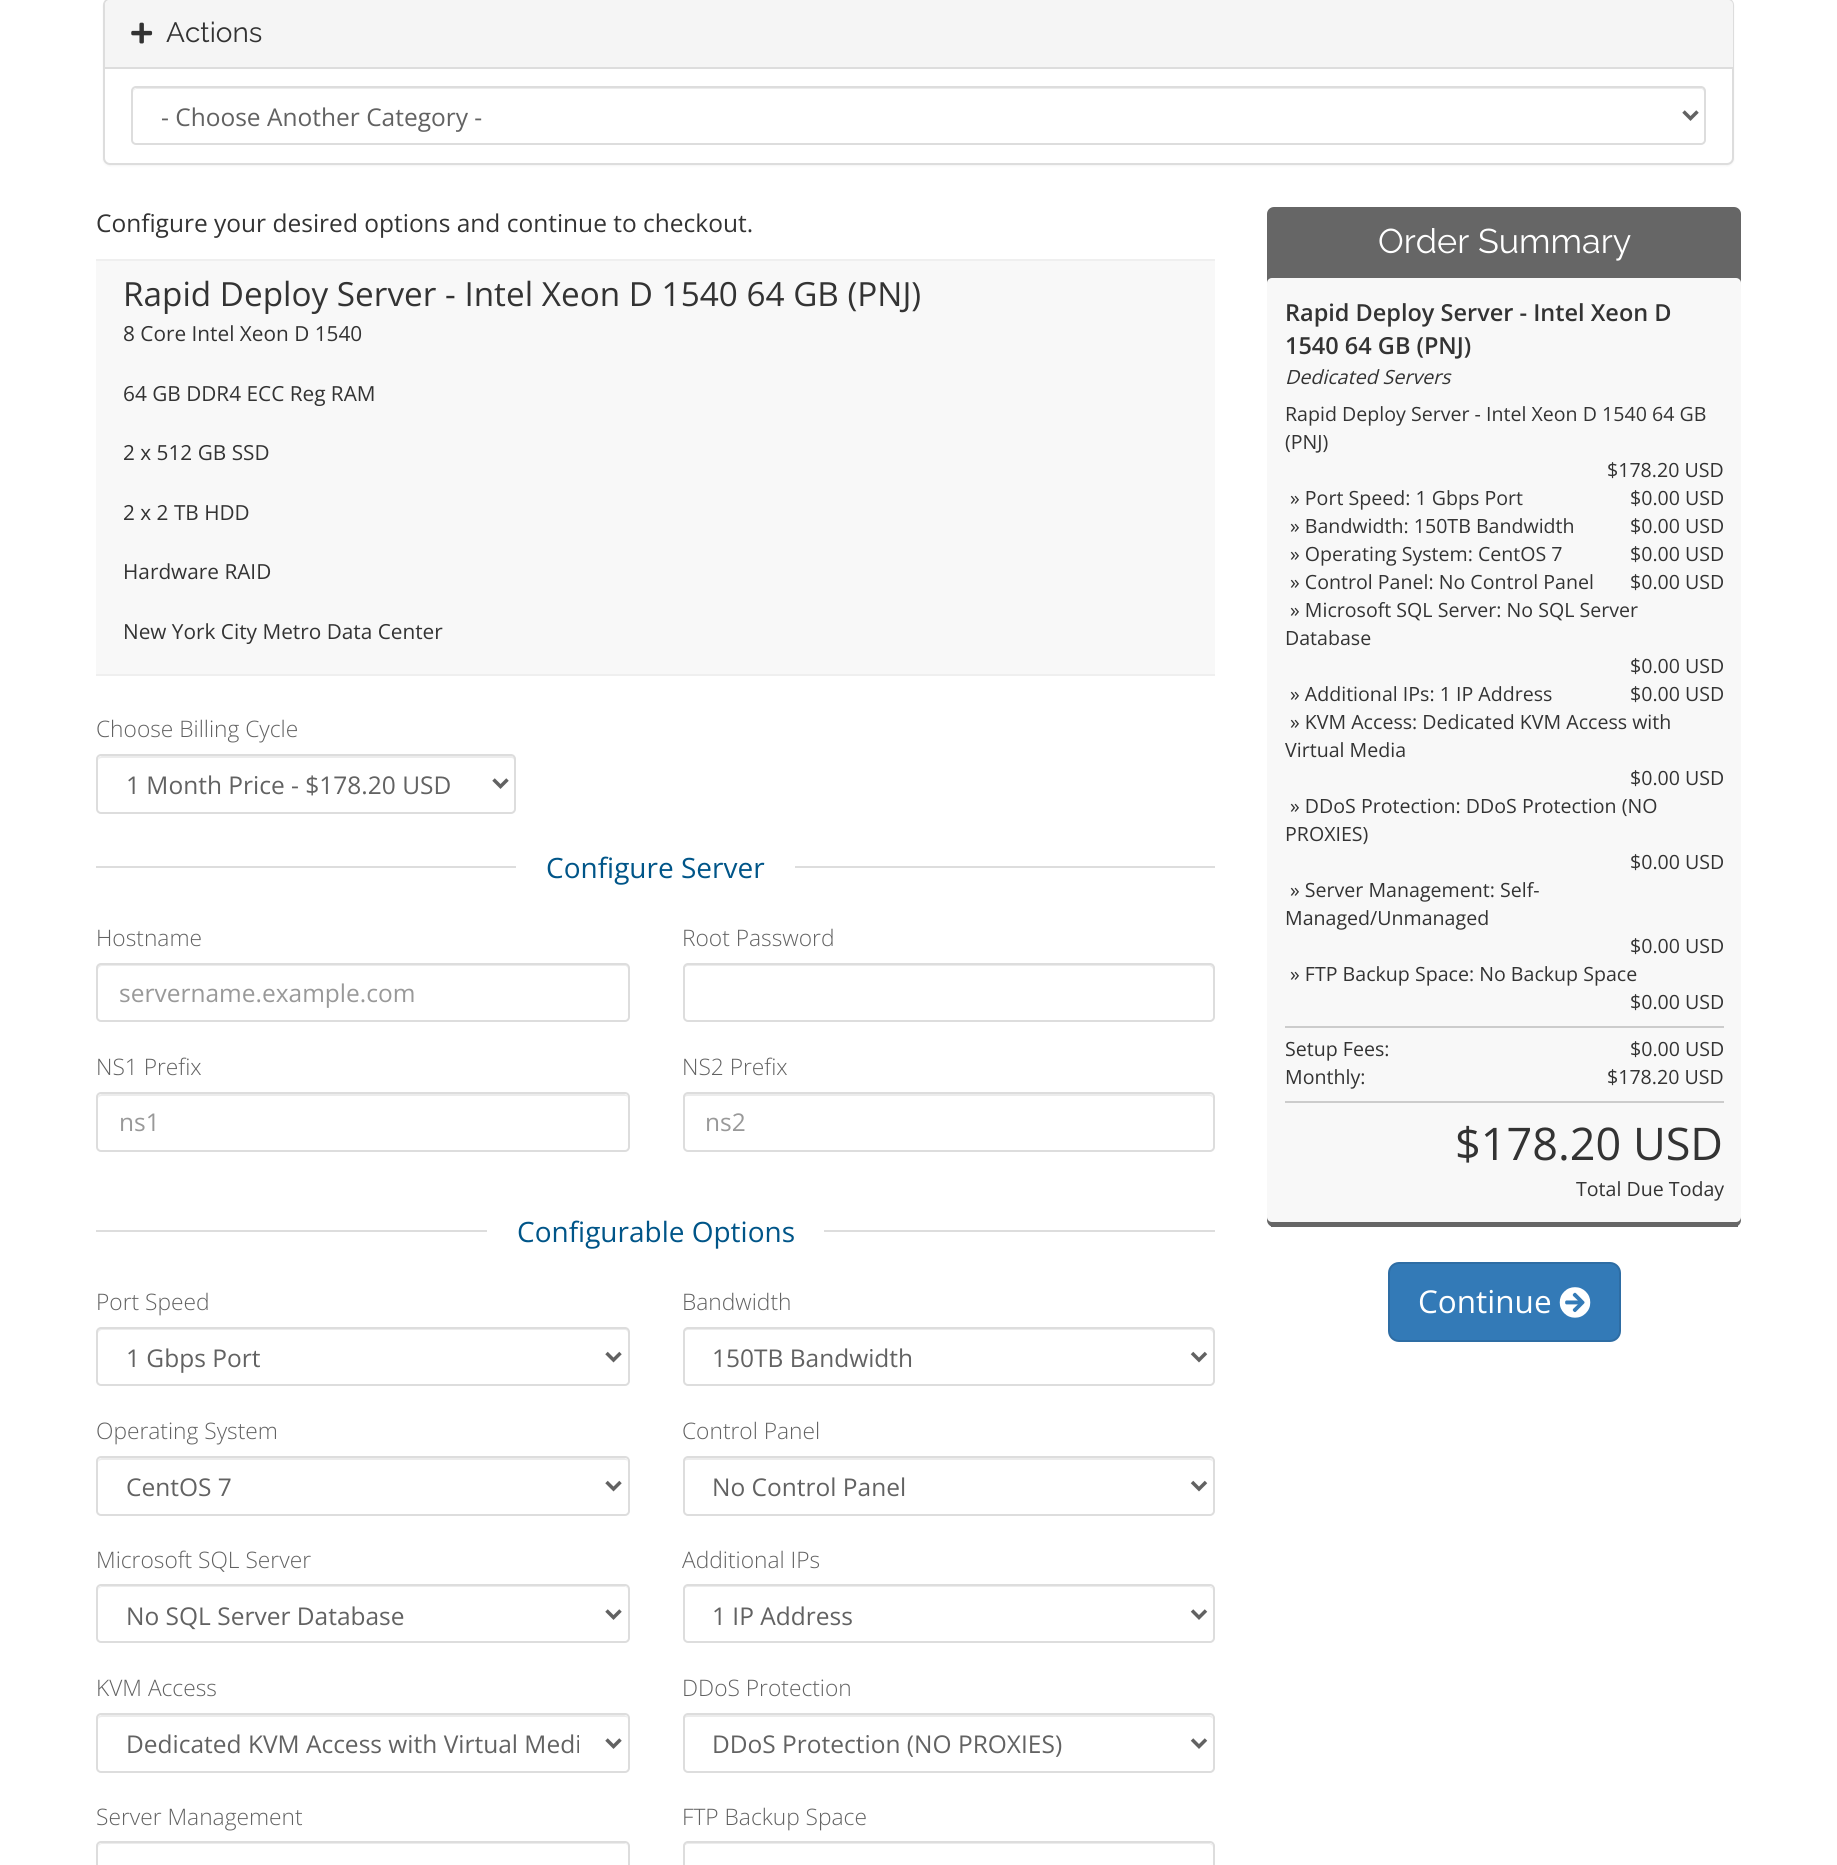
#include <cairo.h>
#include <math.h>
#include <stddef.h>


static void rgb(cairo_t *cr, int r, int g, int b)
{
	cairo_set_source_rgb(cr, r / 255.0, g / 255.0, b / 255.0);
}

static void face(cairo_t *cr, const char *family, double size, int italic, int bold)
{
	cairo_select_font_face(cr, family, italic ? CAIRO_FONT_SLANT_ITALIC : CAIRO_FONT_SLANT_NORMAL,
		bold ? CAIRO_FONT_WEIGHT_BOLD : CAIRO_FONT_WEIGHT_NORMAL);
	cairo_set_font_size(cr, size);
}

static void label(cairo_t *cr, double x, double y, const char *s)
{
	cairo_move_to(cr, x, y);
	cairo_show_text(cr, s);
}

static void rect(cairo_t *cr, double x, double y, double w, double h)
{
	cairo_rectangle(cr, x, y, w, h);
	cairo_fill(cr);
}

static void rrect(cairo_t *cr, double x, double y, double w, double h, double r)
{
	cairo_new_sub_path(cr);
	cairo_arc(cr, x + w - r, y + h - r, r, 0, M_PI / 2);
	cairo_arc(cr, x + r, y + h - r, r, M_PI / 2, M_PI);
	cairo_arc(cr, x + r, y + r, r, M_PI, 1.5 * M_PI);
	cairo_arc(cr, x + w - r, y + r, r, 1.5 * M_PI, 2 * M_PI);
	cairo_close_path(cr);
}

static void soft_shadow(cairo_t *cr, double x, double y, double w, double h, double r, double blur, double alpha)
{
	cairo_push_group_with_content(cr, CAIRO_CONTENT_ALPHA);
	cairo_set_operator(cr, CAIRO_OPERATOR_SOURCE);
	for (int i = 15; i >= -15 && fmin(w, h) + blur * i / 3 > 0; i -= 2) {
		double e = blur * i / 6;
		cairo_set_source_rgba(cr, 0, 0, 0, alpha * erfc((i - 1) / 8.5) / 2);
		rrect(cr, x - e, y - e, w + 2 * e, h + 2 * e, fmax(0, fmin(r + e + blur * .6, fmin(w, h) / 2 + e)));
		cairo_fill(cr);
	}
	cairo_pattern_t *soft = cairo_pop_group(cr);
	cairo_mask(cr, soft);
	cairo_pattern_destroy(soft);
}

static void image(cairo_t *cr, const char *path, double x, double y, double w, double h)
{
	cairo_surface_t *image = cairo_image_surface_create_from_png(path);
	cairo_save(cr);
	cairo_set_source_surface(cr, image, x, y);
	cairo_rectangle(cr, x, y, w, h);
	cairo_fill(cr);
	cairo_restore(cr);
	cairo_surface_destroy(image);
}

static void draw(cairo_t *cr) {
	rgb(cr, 255, 255, 255);
	cairo_paint(cr);
	rgb(cr, 0, 0, 0);
	soft_shadow(cr, 103, 0, 1631, 166, 7, 1, 0.05);
	rgb(cr, 255, 255, 255);
	rrect(cr, 104, -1, 1629, 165, 6);
	cairo_fill_preserve(cr);
	rgb(cr, 221, 221, 221);
	cairo_stroke(cr);
	rgb(cr, 245, 245, 245);
	cairo_new_path(cr);
	cairo_move_to(cr, 110, 0);
	cairo_line_to(cr, 1728, 0);
	cairo_curve_to(cr, 1731, 0, 1733, 2, 1733, 5);
	cairo_line_to(cr, 1733, 68);
	cairo_line_to(cr, 105, 68);
	cairo_line_to(cr, 105, 5);
	cairo_curve_to(cr, 105, 2, 107, 0, 110, 0);
	cairo_close_path(cr);
	cairo_fill(cr);
	rgb(cr, 221, 221, 221);
	rect(cr, 105, 67, 1628, 2);
	image(cr, "image0.png", 131, 22, 22, 22);
	face(cr, "Raleway", 28, 0, 0);
	rgb(cr, 51, 51, 51);
	label(cr, 166, 42, "Actions");
	rgb(cr, 236, 236, 236);
	cairo_new_path(cr);
	cairo_move_to(cr, 136, 89);
	cairo_line_to(cr, 1701, 89);
	cairo_curve_to(cr, 1703, 89, 1704, 91, 1704, 93);
	cairo_line_to(cr, 1704, 143);
	cairo_curve_to(cr, 1705, 142, 1705, 141, 1705, 140);
	cairo_line_to(cr, 1705, 92);
	cairo_curve_to(cr, 1705, 90, 1703, 88, 1701, 88);
	cairo_line_to(cr, 137, 88);
	cairo_curve_to(cr, 135, 88, 133, 90, 133, 92);
	cairo_line_to(cr, 133, 93);
	cairo_curve_to(cr, 133, 91, 135, 89, 136, 89);
	cairo_close_path(cr);
	cairo_fill(cr);
	rrect(cr, 132, 87, 1573, 57, 4);
	rgb(cr, 221, 221, 221);
	cairo_stroke(cr);
	cairo_new_path(cr);
	cairo_move_to(cr, 1683.5, 111.5);
	cairo_line_to(cr, 1690.5, 118.5);
	cairo_line_to(cr, 1697.5, 111.5);
	rgb(cr, 98, 98, 98);
	cairo_set_line_width(cr, 3.5);
	cairo_stroke(cr);
	face(cr, "Open Sans", 24.5, 0, 0);
	label(cr, 161, 126, "- Choose Another Category -");
	rgb(cr, 51, 51, 51);
	label(cr, 96, 232, "Configure your desired options and continue to checkout.");
	rgb(cr, 248, 248, 248);
	rect(cr, 96, 261, 1119, 413);
	rgb(cr, 239, 239, 239);
	rect(cr, 96, 259, 1119, 2);
	rect(cr, 96, 674, 1119, 2);
	face(cr, "Open Sans", 33.3, 0, 0);
	rgb(cr, 51, 51, 51);
	label(cr, 123, 306, "Rapid Deploy Server - Intel Xeon D 1540 64 GB (PNJ)");
	face(cr, "Open Sans", 20.8, 0, 0);
	label(cr, 123, 341, "8 Core Intel Xeon D 1540");
	label(cr, 123, 401, "64 GB DDR4 ECC Reg RAM");
	label(cr, 123, 460, "2 x 512 GB SSD");
	label(cr, 123, 520, "2 x 2 TB HDD");
	label(cr, 123, 579, "Hardware RAID");
	label(cr, 123, 639, "New York City Metro Data Center");
	face(cr, "Open Sans Light", 22.75, 0, 0);
	rgb(cr, 98, 98, 98);
	label(cr, 96, 737, "Choose Billing Cycle");
	rgb(cr, 236, 236, 236);
	cairo_new_path(cr);
	cairo_move_to(cr, 102, 758);
	cairo_line_to(cr, 511, 758);
	cairo_curve_to(cr, 513, 758, 514, 759, 514, 761);
	cairo_line_to(cr, 514, 811);
	cairo_curve_to(cr, 515, 810, 515, 809, 515, 808);
	cairo_line_to(cr, 515, 760);
	cairo_curve_to(cr, 515, 758, 513, 756, 511, 756);
	cairo_line_to(cr, 102, 756);
	cairo_curve_to(cr, 100, 756, 98, 758, 98, 760);
	cairo_line_to(cr, 98, 761);
	cairo_curve_to(cr, 98, 759, 100, 758, 102, 758);
	cairo_close_path(cr);
	cairo_fill(cr);
	rrect(cr, 97, 755, 418, 58, 4);
	rgb(cr, 221, 221, 221);
	cairo_set_line_width(cr, 2);
	cairo_stroke(cr);
	cairo_new_path(cr);
	cairo_move_to(cr, 493.5, 779.5);
	cairo_line_to(cr, 500.5, 786.5);
	cairo_line_to(cr, 507.5, 779.5);
	rgb(cr, 98, 98, 98);
	cairo_set_line_width(cr, 3.5);
	cairo_stroke(cr);
	face(cr, "Open Sans", 24.5, 0, 0);
	label(cr, 126, 794, "1 Month Price - $178.20 USD");
	rgb(cr, 221, 221, 221);
	rect(cr, 96, 866, 1119, 2);
	rgb(cr, 255, 255, 255);
	rect(cr, 516, 866, 279, 2);
	face(cr, "Open Sans", 28, 0, 0);
	rgb(cr, 0, 85, 136);
	label(cr, 546, 878, "Configure Server");
	face(cr, "Open Sans Light", 22.75, 0, 0);
	rgb(cr, 98, 98, 98);
	label(cr, 96, 946, "Hostname");
	rgb(cr, 236, 236, 236);
	cairo_new_path(cr);
	cairo_move_to(cr, 102, 966);
	cairo_line_to(cr, 625, 966);
	cairo_curve_to(cr, 627, 966, 628, 968, 628, 970);
	cairo_line_to(cr, 628, 968);
	cairo_curve_to(cr, 628, 966, 626, 964, 624, 964);
	cairo_line_to(cr, 102, 964);
	cairo_curve_to(cr, 100, 964, 98, 966, 98, 968);
	cairo_line_to(cr, 98, 970);
	cairo_curve_to(cr, 98, 968, 100, 966, 102, 966);
	cairo_close_path(cr);
	cairo_fill(cr);
	rrect(cr, 97, 964, 532, 57, 4);
	rgb(cr, 221, 221, 221);
	cairo_set_line_width(cr, 2);
	cairo_stroke(cr);
	face(cr, "Open Sans", 24.5, 0, 0);
	rgb(cr, 153, 153, 153);
	label(cr, 119, 1002, "servername.example.com");
	face(cr, "Open Sans Light", 22.75, 0, 0);
	rgb(cr, 98, 98, 98);
	label(cr, 682, 946, "Root Password");
	rgb(cr, 236, 236, 236);
	cairo_new_path(cr);
	cairo_move_to(cr, 688, 966);
	cairo_line_to(cr, 1209, 966);
	cairo_curve_to(cr, 1211, 966, 1213, 968, 1213, 970);
	cairo_line_to(cr, 1213, 968);
	cairo_curve_to(cr, 1213, 966, 1211, 964, 1209, 964);
	cairo_line_to(cr, 688, 964);
	cairo_curve_to(cr, 686, 964, 684, 966, 684, 968);
	cairo_line_to(cr, 684, 970);
	cairo_curve_to(cr, 684, 968, 686, 966, 688, 966);
	cairo_close_path(cr);
	cairo_fill(cr);
	rrect(cr, 684, 964, 530, 57, 4);
	rgb(cr, 221, 221, 221);
	cairo_stroke(cr);
	rgb(cr, 98, 98, 98);
	label(cr, 96, 1075, "NS1 Prefix");
	rgb(cr, 236, 236, 236);
	cairo_new_path(cr);
	cairo_move_to(cr, 102, 1096);
	cairo_line_to(cr, 625, 1096);
	cairo_curve_to(cr, 627, 1096, 628, 1097, 628, 1099);
	cairo_line_to(cr, 628, 1098);
	cairo_curve_to(cr, 628, 1096, 626, 1094, 624, 1094);
	cairo_line_to(cr, 102, 1094);
	cairo_curve_to(cr, 100, 1094, 98, 1096, 98, 1098);
	cairo_line_to(cr, 98, 1099);
	cairo_curve_to(cr, 98, 1097, 100, 1096, 102, 1096);
	cairo_close_path(cr);
	cairo_fill(cr);
	rrect(cr, 97, 1093, 532, 58, 4);
	rgb(cr, 221, 221, 221);
	cairo_stroke(cr);
	face(cr, "Open Sans", 24.5, 0, 0);
	rgb(cr, 153, 153, 153);
	label(cr, 119, 1131, "ns1");
	face(cr, "Open Sans Light", 22.75, 0, 0);
	rgb(cr, 98, 98, 98);
	label(cr, 682, 1075, "NS2 Prefix");
	rgb(cr, 236, 236, 236);
	cairo_new_path(cr);
	cairo_move_to(cr, 688, 1096);
	cairo_line_to(cr, 1209, 1096);
	cairo_curve_to(cr, 1211, 1096, 1213, 1097, 1213, 1099);
	cairo_line_to(cr, 1213, 1098);
	cairo_curve_to(cr, 1213, 1096, 1211, 1094, 1209, 1094);
	cairo_line_to(cr, 688, 1094);
	cairo_curve_to(cr, 686, 1094, 684, 1096, 684, 1098);
	cairo_line_to(cr, 684, 1099);
	cairo_curve_to(cr, 684, 1097, 686, 1096, 688, 1096);
	cairo_close_path(cr);
	cairo_fill(cr);
	rrect(cr, 684, 1093, 530, 58, 4);
	rgb(cr, 221, 221, 221);
	cairo_stroke(cr);
	face(cr, "Open Sans", 24.5, 0, 0);
	rgb(cr, 153, 153, 153);
	label(cr, 705, 1131, "ns2");
	rgb(cr, 221, 221, 221);
	rect(cr, 96, 1230, 1119, 2);
	rgb(cr, 255, 255, 255);
	rect(cr, 487, 1230, 337, 2);
	face(cr, "Open Sans", 28, 0, 0);
	rgb(cr, 0, 85, 136);
	label(cr, 517, 1242, "Configurable Options");
	face(cr, "Open Sans Light", 22.75, 0, 0);
	rgb(cr, 98, 98, 98);
	label(cr, 96, 1310, "Port Speed");
	rgb(cr, 236, 236, 236);
	cairo_new_path(cr);
	cairo_move_to(cr, 102, 1330);
	cairo_line_to(cr, 625, 1330);
	cairo_curve_to(cr, 627, 1330, 628, 1332, 628, 1334);
	cairo_line_to(cr, 628, 1332);
	cairo_curve_to(cr, 628, 1330, 626, 1328, 624, 1328);
	cairo_line_to(cr, 102, 1328);
	cairo_curve_to(cr, 100, 1328, 98, 1330, 98, 1332);
	cairo_line_to(cr, 98, 1334);
	cairo_curve_to(cr, 98, 1332, 100, 1330, 102, 1330);
	cairo_close_path(cr);
	cairo_fill(cr);
	rrect(cr, 97, 1328, 532, 57, 4);
	rgb(cr, 221, 221, 221);
	cairo_stroke(cr);
	cairo_new_path(cr);
	cairo_move_to(cr, 606.5, 1353);
	cairo_line_to(cr, 613.5, 1360);
	cairo_line_to(cr, 620.5, 1353);
	rgb(cr, 98, 98, 98);
	cairo_set_line_width(cr, 3.5);
	cairo_stroke(cr);
	face(cr, "Open Sans", 24.5, 0, 0);
	label(cr, 126, 1367, "1 Gbps Port");
	face(cr, "Open Sans Light", 22.75, 0, 0);
	label(cr, 682, 1310, "Bandwidth");
	rgb(cr, 236, 236, 236);
	cairo_new_path(cr);
	cairo_move_to(cr, 688, 1330);
	cairo_line_to(cr, 1209, 1330);
	cairo_curve_to(cr, 1211, 1330, 1213, 1332, 1213, 1334);
	cairo_line_to(cr, 1213, 1332);
	cairo_curve_to(cr, 1213, 1330, 1211, 1328, 1209, 1328);
	cairo_line_to(cr, 688, 1328);
	cairo_curve_to(cr, 686, 1328, 684, 1330, 684, 1332);
	cairo_line_to(cr, 684, 1334);
	cairo_curve_to(cr, 684, 1332, 686, 1330, 688, 1330);
	cairo_close_path(cr);
	cairo_fill(cr);
	rrect(cr, 684, 1328, 530, 57, 4);
	rgb(cr, 221, 221, 221);
	cairo_set_line_width(cr, 2);
	cairo_stroke(cr);
	cairo_new_path(cr);
	cairo_move_to(cr, 1192, 1353);
	cairo_line_to(cr, 1199, 1360);
	cairo_line_to(cr, 1206, 1353);
	rgb(cr, 98, 98, 98);
	cairo_set_line_width(cr, 3.5);
	cairo_stroke(cr);
	face(cr, "Open Sans", 24.5, 0, 0);
	label(cr, 712, 1367, "150TB Bandwidth");
	face(cr, "Open Sans Light", 22.75, 0, 0);
	label(cr, 96, 1439, "Operating System");
	rgb(cr, 236, 236, 236);
	cairo_new_path(cr);
	cairo_move_to(cr, 102, 1460);
	cairo_line_to(cr, 625, 1460);
	cairo_curve_to(cr, 627, 1460, 628, 1461, 628, 1463);
	cairo_line_to(cr, 628, 1462);
	cairo_curve_to(cr, 628, 1460, 626, 1458, 624, 1458);
	cairo_line_to(cr, 102, 1458);
	cairo_curve_to(cr, 100, 1458, 98, 1460, 98, 1462);
	cairo_line_to(cr, 98, 1463);
	cairo_curve_to(cr, 98, 1461, 100, 1460, 102, 1460);
	cairo_close_path(cr);
	cairo_fill(cr);
	rrect(cr, 97, 1457, 532, 58, 4);
	rgb(cr, 221, 221, 221);
	cairo_set_line_width(cr, 2);
	cairo_stroke(cr);
	cairo_new_path(cr);
	cairo_move_to(cr, 606.5, 1482);
	cairo_line_to(cr, 613.5, 1489);
	cairo_line_to(cr, 620.5, 1482);
	rgb(cr, 98, 98, 98);
	cairo_set_line_width(cr, 3.5);
	cairo_stroke(cr);
	face(cr, "Open Sans", 24.5, 0, 0);
	label(cr, 126, 1496, "CentOS 7");
	face(cr, "Open Sans Light", 22.75, 0, 0);
	label(cr, 682, 1439, "Control Panel");
	rgb(cr, 236, 236, 236);
	cairo_new_path(cr);
	cairo_move_to(cr, 688, 1460);
	cairo_line_to(cr, 1209, 1460);
	cairo_curve_to(cr, 1211, 1460, 1213, 1461, 1213, 1463);
	cairo_line_to(cr, 1213, 1462);
	cairo_curve_to(cr, 1213, 1460, 1211, 1458, 1209, 1458);
	cairo_line_to(cr, 688, 1458);
	cairo_curve_to(cr, 686, 1458, 684, 1460, 684, 1462);
	cairo_line_to(cr, 684, 1463);
	cairo_curve_to(cr, 684, 1461, 686, 1460, 688, 1460);
	cairo_close_path(cr);
	cairo_fill(cr);
	rrect(cr, 684, 1457, 530, 58, 4);
	rgb(cr, 221, 221, 221);
	cairo_set_line_width(cr, 2);
	cairo_stroke(cr);
	cairo_new_path(cr);
	cairo_move_to(cr, 1192, 1482);
	cairo_line_to(cr, 1199, 1489);
	cairo_line_to(cr, 1206, 1482);
	rgb(cr, 98, 98, 98);
	cairo_set_line_width(cr, 3.5);
	cairo_stroke(cr);
	face(cr, "Open Sans", 24.5, 0, 0);
	label(cr, 712, 1496, "No Control Panel");
	face(cr, "Open Sans Light", 22.75, 0, 0);
	label(cr, 96, 1568, "Microsoft SQL Server");
	rgb(cr, 236, 236, 236);
	cairo_new_path(cr);
	cairo_move_to(cr, 102, 1587);
	cairo_line_to(cr, 625, 1587);
	cairo_curve_to(cr, 627, 1587, 628, 1589, 628, 1591);
	cairo_line_to(cr, 628, 1590);
	cairo_curve_to(cr, 628, 1588, 626, 1586, 624, 1586);
	cairo_line_to(cr, 102, 1586);
	cairo_curve_to(cr, 100, 1586, 98, 1588, 98, 1590);
	cairo_line_to(cr, 98, 1591);
	cairo_curve_to(cr, 98, 1589, 100, 1587, 102, 1587);
	cairo_close_path(cr);
	cairo_fill(cr);
	rrect(cr, 97, 1585, 532, 57, 4);
	rgb(cr, 221, 221, 221);
	cairo_set_line_width(cr, 2);
	cairo_stroke(cr);
	cairo_new_path(cr);
	cairo_move_to(cr, 606.5, 1610.5);
	cairo_line_to(cr, 613.5, 1617.5);
	cairo_line_to(cr, 620.5, 1610.5);
	rgb(cr, 98, 98, 98);
	cairo_set_line_width(cr, 3.5);
	cairo_stroke(cr);
	face(cr, "Open Sans", 24.5, 0, 0);
	label(cr, 126, 1625, "No SQL Server Database");
	face(cr, "Open Sans Light", 22.75, 0, 0);
	label(cr, 682, 1568, "Additional IPs");
	rgb(cr, 236, 236, 236);
	cairo_new_path(cr);
	cairo_move_to(cr, 688, 1587);
	cairo_line_to(cr, 1209, 1587);
	cairo_curve_to(cr, 1211, 1587, 1213, 1589, 1213, 1591);
	cairo_line_to(cr, 1213, 1590);
	cairo_curve_to(cr, 1213, 1588, 1211, 1586, 1209, 1586);
	cairo_line_to(cr, 688, 1586);
	cairo_curve_to(cr, 686, 1586, 684, 1588, 684, 1590);
	cairo_line_to(cr, 684, 1591);
	cairo_curve_to(cr, 684, 1589, 686, 1587, 688, 1587);
	cairo_close_path(cr);
	cairo_fill(cr);
	rrect(cr, 684, 1585, 530, 57, 4);
	rgb(cr, 221, 221, 221);
	cairo_set_line_width(cr, 2);
	cairo_stroke(cr);
	cairo_new_path(cr);
	cairo_move_to(cr, 1192, 1610.5);
	cairo_line_to(cr, 1199, 1617.5);
	cairo_line_to(cr, 1206, 1610.5);
	rgb(cr, 98, 98, 98);
	cairo_set_line_width(cr, 3.5);
	cairo_stroke(cr);
	face(cr, "Open Sans", 24.5, 0, 0);
	label(cr, 712, 1625, "1 IP Address");
	face(cr, "Open Sans Light", 22.75, 0, 0);
	label(cr, 96, 1696, "KVM Access");
	rgb(cr, 236, 236, 236);
	cairo_new_path(cr);
	cairo_move_to(cr, 102, 1717);
	cairo_line_to(cr, 625, 1717);
	cairo_curve_to(cr, 627, 1717, 628, 1718, 628, 1720);
	cairo_line_to(cr, 628, 1719);
	cairo_curve_to(cr, 628, 1717, 626, 1715, 624, 1715);
	cairo_line_to(cr, 102, 1715);
	cairo_curve_to(cr, 100, 1715, 98, 1717, 98, 1719);
	cairo_line_to(cr, 98, 1720);
	cairo_curve_to(cr, 98, 1718, 100, 1717, 102, 1717);
	cairo_close_path(cr);
	cairo_fill(cr);
	rrect(cr, 97, 1714, 532, 58, 4);
	rgb(cr, 221, 221, 221);
	cairo_set_line_width(cr, 2);
	cairo_stroke(cr);
	cairo_new_path(cr);
	cairo_move_to(cr, 606.5, 1739.5);
	cairo_line_to(cr, 613.5, 1746.5);
	cairo_line_to(cr, 620.5, 1739.5);
	rgb(cr, 98, 98, 98);
	cairo_set_line_width(cr, 3.5);
	cairo_stroke(cr);
	cairo_save(cr);
	cairo_rectangle(cr, 126, 1726, 453, 36);
	cairo_clip(cr);
	face(cr, "Open Sans", 24.5, 0, 0);
	label(cr, 126, 1753, "Dedicated KVM Access with Virtual Medi");
	cairo_restore(cr);
	label(cr, 682, 1696, "DDoS Protection");
	rgb(cr, 236, 236, 236);
	cairo_new_path(cr);
	cairo_move_to(cr, 688, 1717);
	cairo_line_to(cr, 1209, 1717);
	cairo_curve_to(cr, 1211, 1717, 1213, 1718, 1213, 1720);
	cairo_line_to(cr, 1213, 1719);
	cairo_curve_to(cr, 1213, 1717, 1211, 1715, 1209, 1715);
	cairo_line_to(cr, 688, 1715);
	cairo_curve_to(cr, 686, 1715, 684, 1717, 684, 1719);
	cairo_line_to(cr, 684, 1720);
	cairo_curve_to(cr, 684, 1718, 686, 1717, 688, 1717);
	cairo_close_path(cr);
	cairo_fill(cr);
	rrect(cr, 684, 1714, 530, 58, 4);
	rgb(cr, 221, 221, 221);
	cairo_set_line_width(cr, 2);
	cairo_stroke(cr);
	cairo_new_path(cr);
	cairo_move_to(cr, 1192, 1739.5);
	cairo_line_to(cr, 1199, 1746.5);
	cairo_line_to(cr, 1206, 1739.5);
	rgb(cr, 98, 98, 98);
	cairo_set_line_width(cr, 3.5);
	cairo_stroke(cr);
	face(cr, "Open Sans", 24.5, 0, 0);
	label(cr, 712, 1753, "DDoS Protection (NO PROXIES)");
	face(cr, "Open Sans Light", 22.75, 0, 0);
	label(cr, 96, 1825, "Server Management");
	rgb(cr, 236, 236, 236);
	cairo_new_path(cr);
	cairo_move_to(cr, 102, 1844);
	cairo_line_to(cr, 625, 1844);
	cairo_curve_to(cr, 627, 1844, 628, 1846, 628, 1848);
	cairo_line_to(cr, 628, 1847);
	cairo_curve_to(cr, 628, 1845, 626, 1843, 624, 1843);
	cairo_line_to(cr, 102, 1843);
	cairo_curve_to(cr, 100, 1843, 98, 1845, 98, 1847);
	cairo_line_to(cr, 98, 1848);
	cairo_curve_to(cr, 98, 1846, 100, 1844, 102, 1844);
	cairo_close_path(cr);
	cairo_fill(cr);
	rrect(cr, 97, 1842, 532, 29, 4);
	rgb(cr, 221, 221, 221);
	cairo_set_line_width(cr, 2);
	cairo_stroke(cr);
	rgb(cr, 98, 98, 98);
	label(cr, 682, 1825, "FTP Backup Space");
	rgb(cr, 236, 236, 236);
	cairo_new_path(cr);
	cairo_move_to(cr, 688, 1844);
	cairo_line_to(cr, 1209, 1844);
	cairo_curve_to(cr, 1211, 1844, 1213, 1846, 1213, 1848);
	cairo_line_to(cr, 1213, 1847);
	cairo_curve_to(cr, 1213, 1845, 1211, 1843, 1209, 1843);
	cairo_line_to(cr, 688, 1843);
	cairo_curve_to(cr, 686, 1843, 684, 1845, 684, 1847);
	cairo_line_to(cr, 684, 1848);
	cairo_curve_to(cr, 684, 1846, 686, 1844, 688, 1844);
	cairo_close_path(cr);
	cairo_fill(cr);
	rrect(cr, 684, 1842, 530, 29, 4);
	rgb(cr, 221, 221, 221);
	cairo_stroke(cr);
	rgb(cr, 102, 102, 102);
	rrect(cr, 1267, 207, 474, 1020, 7);
	cairo_fill(cr);
	rect(cr, 1271, 1225, 467, 2);
	face(cr, "Raleway", 34.25, 0, 0);
	rgb(cr, 255, 255, 255);
	label(cr, 1378, 253, "Order Summary");
	rgb(cr, 248, 248, 248);
	rrect(cr, 1267, 278, 474, 944, 5);
	cairo_fill(cr);
	face(cr, "Open Sans SemiBold", 23.5, 0, 0);
	rgb(cr, 51, 51, 51);
	label(cr, 1285, 321, "Rapid Deploy Server - Intel Xeon D");
	label(cr, 1285, 354, "1540 64 GB (PNJ)");
	face(cr, "Open Sans", 19.6, 1, 0);
	label(cr, 1285, 384, "Dedicated Servers");
	face(cr, "Open Sans", 19.6, 0, 0);
	label(cr, 1285, 421, "Rapid Deploy Server - Intel Xeon D 1540 64 GB");
	label(cr, 1285, 449, "(PNJ)");
	label(cr, 1607, 477, "$178.20 USD");
	label(cr, 1290, 505, "» Port Speed: 1 Gbps Port");
	label(cr, 1630, 505, "$0.00 USD");
	label(cr, 1290, 533, "» Bandwidth: 150TB Bandwidth");
	label(cr, 1630, 533, "$0.00 USD");
	label(cr, 1290, 561, "» Operating System: CentOS 7");
	label(cr, 1630, 561, "$0.00 USD");
	label(cr, 1290, 589, "» Control Panel: No Control Panel");
	label(cr, 1630, 589, "$0.00 USD");
	label(cr, 1290, 617, "» Microsoft SQL Server: No SQL Server");
	label(cr, 1285, 645, "Database");
	label(cr, 1630, 673, "$0.00 USD");
	label(cr, 1290, 701, "» Additional IPs: 1 IP Address");
	label(cr, 1630, 701, "$0.00 USD");
	label(cr, 1290, 729, "» KVM Access: Dedicated KVM Access with");
	label(cr, 1285, 757, "Virtual Media");
	label(cr, 1630, 785, "$0.00 USD");
	label(cr, 1290, 813, "» DDoS Protection: DDoS Protection (NO");
	label(cr, 1285, 841, "PROXIES)");
	label(cr, 1630, 869, "$0.00 USD");
	label(cr, 1290, 897, "» Server Management: Self-");
	label(cr, 1285, 925, "Managed/Unmanaged");
	label(cr, 1630, 953, "$0.00 USD");
	label(cr, 1290, 981, "» FTP Backup Space: No Backup Space");
	label(cr, 1630, 1009, "$0.00 USD");
	rgb(cr, 204, 204, 204);
	rect(cr, 1285, 1026, 439, 2);
	rect(cr, 1285, 1101, 439, 2);
	rgb(cr, 51, 51, 51);
	label(cr, 1285, 1056, "Setup Fees:");
	label(cr, 1630, 1056, "$0.00 USD");
	label(cr, 1285, 1084, "Monthly:");
	label(cr, 1607, 1084, "$178.20 USD");
	face(cr, "Open Sans", 45, 0, 0);
	label(cr, 1455, 1160, "$178.20 USD");
	face(cr, "Open Sans", 19.6, 0, 0);
	label(cr, 1576, 1196, "Total Due Today");
	rgb(cr, 51, 122, 183);
	rrect(cr, 1389, 1263, 231, 78, 10);
	cairo_fill_preserve(cr);
	rgb(cr, 46, 109, 164);
	cairo_stroke(cr);
	face(cr, "Open Sans", 31.5, 0, 0);
	rgb(cr, 255, 255, 255);
	label(cr, 1418, 1313, "Continue");
	image(cr, "image1.png", 1559, 1287, 32, 31);
}

int main(void) {
	cairo_surface_t *surface = cairo_image_surface_create(CAIRO_FORMAT_RGB24, 1837, 1865);
	cairo_t *cr = cairo_create(surface);
	cairo_font_options_t *options = cairo_font_options_create();
	cairo_font_options_set_hint_metrics(options, CAIRO_HINT_METRICS_OFF);
	cairo_font_options_set_hint_style(options, CAIRO_HINT_STYLE_NONE);
	cairo_set_font_options(cr, options);
	cairo_set_miter_limit(cr, 4);
	draw(cr);
	cairo_surface_write_to_png(surface, "render.png");
	cairo_font_options_destroy(options);
	cairo_destroy(cr);
	cairo_surface_destroy(surface);
	return 0;
}
